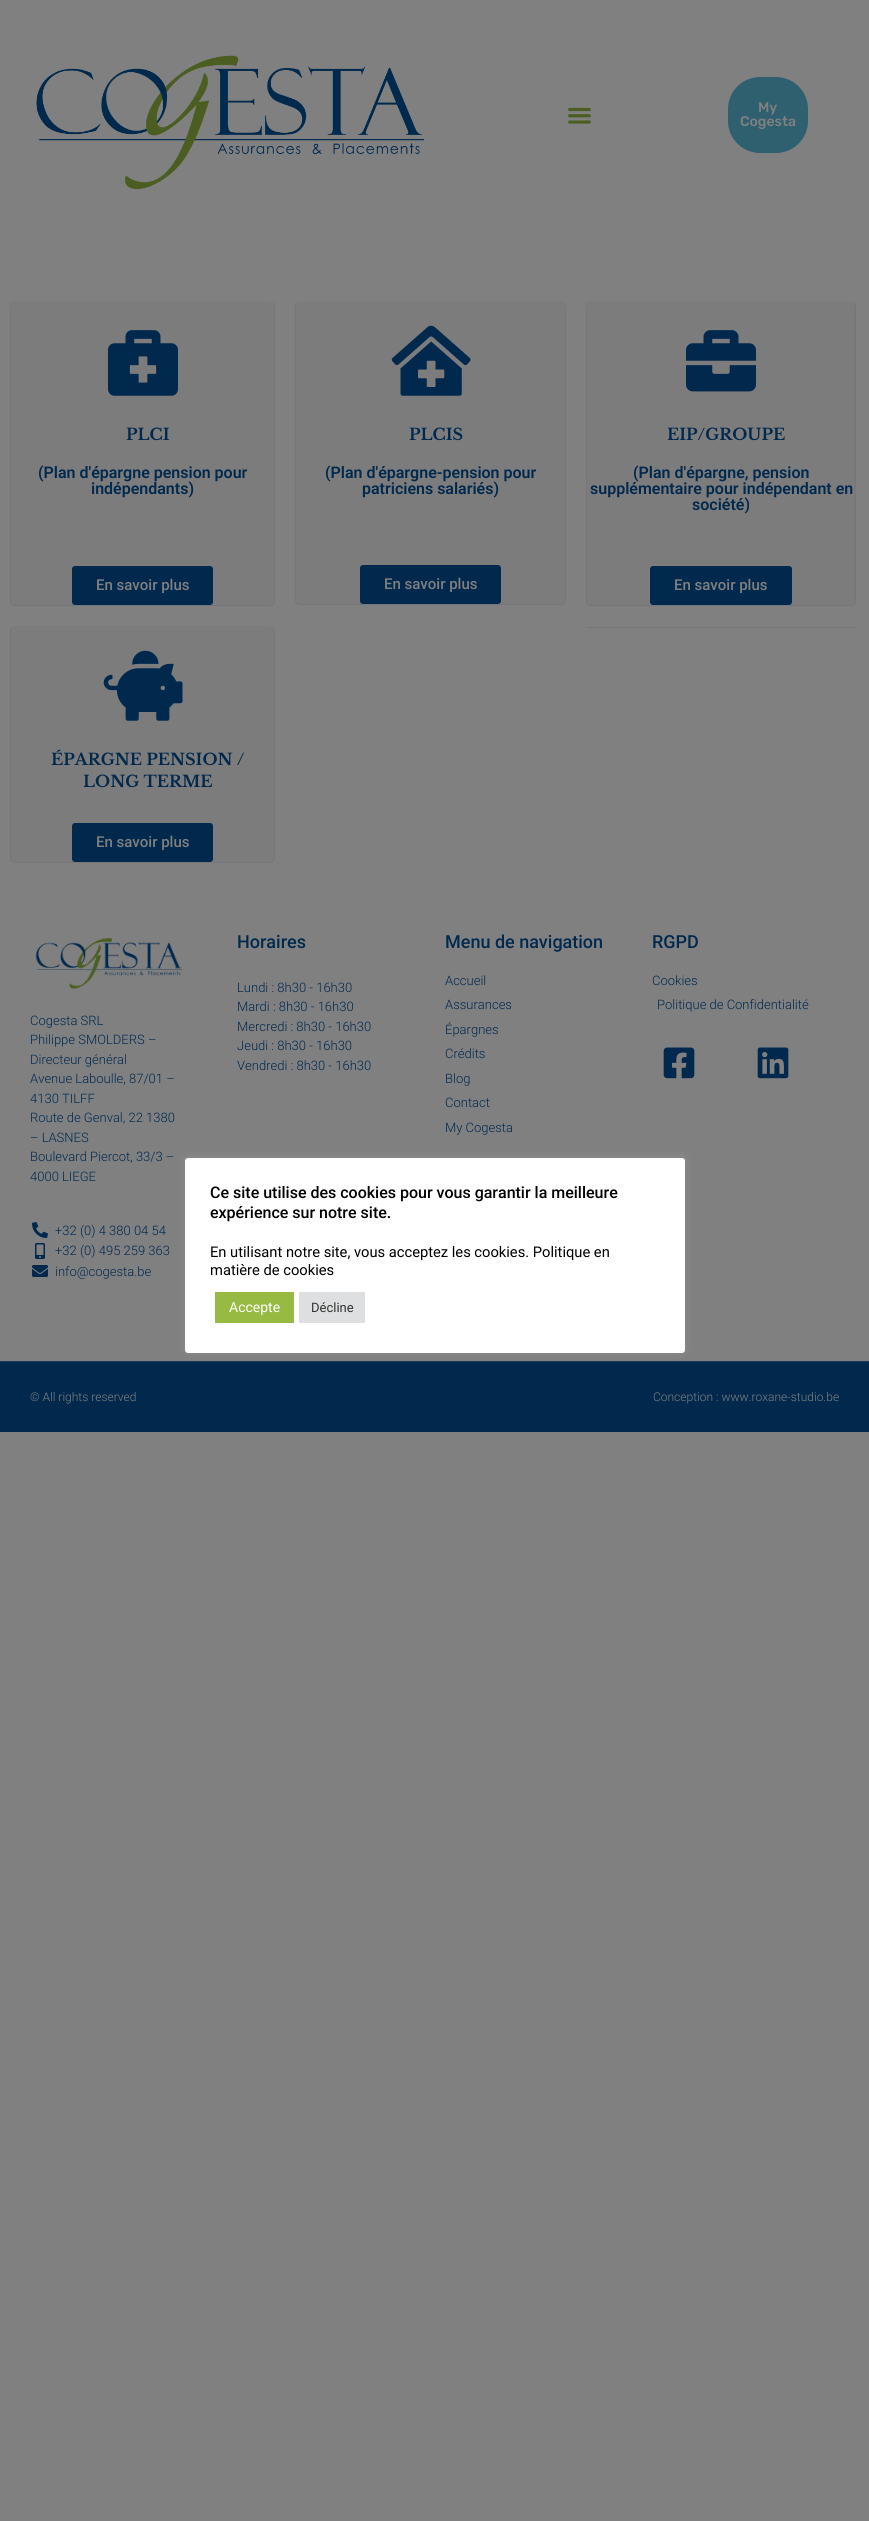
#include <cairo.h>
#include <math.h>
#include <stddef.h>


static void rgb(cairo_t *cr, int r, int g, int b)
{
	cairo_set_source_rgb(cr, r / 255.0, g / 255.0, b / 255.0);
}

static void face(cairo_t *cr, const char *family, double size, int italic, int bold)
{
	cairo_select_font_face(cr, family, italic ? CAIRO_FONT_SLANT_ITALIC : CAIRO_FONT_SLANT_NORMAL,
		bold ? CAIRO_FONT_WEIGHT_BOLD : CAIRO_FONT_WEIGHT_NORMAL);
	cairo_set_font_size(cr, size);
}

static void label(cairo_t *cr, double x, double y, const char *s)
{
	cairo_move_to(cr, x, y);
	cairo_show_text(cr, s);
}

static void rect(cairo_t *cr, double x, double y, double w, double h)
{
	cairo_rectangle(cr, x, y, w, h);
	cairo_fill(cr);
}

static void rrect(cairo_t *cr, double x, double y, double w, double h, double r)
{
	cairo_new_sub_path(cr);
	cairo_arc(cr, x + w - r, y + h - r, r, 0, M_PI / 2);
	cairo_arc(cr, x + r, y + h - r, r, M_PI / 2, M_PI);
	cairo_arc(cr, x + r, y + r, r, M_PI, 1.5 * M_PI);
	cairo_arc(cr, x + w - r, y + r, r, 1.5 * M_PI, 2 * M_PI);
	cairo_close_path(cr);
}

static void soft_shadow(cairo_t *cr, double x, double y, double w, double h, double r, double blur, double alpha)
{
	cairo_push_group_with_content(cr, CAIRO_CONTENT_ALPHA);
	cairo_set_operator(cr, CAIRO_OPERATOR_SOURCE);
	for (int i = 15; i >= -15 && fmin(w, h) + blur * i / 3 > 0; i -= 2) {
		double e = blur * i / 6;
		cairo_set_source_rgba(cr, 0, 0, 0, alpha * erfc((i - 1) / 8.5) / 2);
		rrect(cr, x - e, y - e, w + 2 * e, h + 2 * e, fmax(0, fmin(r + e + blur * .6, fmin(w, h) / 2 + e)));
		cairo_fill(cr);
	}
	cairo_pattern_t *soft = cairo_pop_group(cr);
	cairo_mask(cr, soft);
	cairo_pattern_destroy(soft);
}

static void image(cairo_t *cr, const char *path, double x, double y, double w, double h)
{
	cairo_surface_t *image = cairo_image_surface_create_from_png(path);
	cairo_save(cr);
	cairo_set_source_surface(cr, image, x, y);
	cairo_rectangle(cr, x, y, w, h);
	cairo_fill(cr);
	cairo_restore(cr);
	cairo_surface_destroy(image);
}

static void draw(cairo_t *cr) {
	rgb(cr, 128, 128, 128);
	cairo_paint(cr);
	image(cr, "image0.png", 36, 55, 389, 135);
	image(cr, "image1.png", 568, 107, 23, 17);
	rgb(cr, 46, 96, 111);
	rrect(cr, 726.5, 75.5, 83, 79, 33.5);
	cairo_fill_preserve(cr);
	rgb(cr, 128, 128, 128);
	cairo_set_line_width(cr, 3);
	cairo_stroke(cr);
	face(cr, "Rubik Medium", 14, 0, 0);
	label(cr, 758, 112, "My");
	label(cr, 740, 126, "Cogesta");
	rgb(cr, 116, 118, 121);
	cairo_set_fill_rule(cr, CAIRO_FILL_RULE_EVEN_ODD);
	cairo_new_path(cr);
	cairo_move_to(cr, 15, 301);
	cairo_line_to(cr, 270, 301);
	cairo_curve_to(cr, 273, 301, 275, 303, 275, 306);
	cairo_line_to(cr, 275, 601);
	cairo_curve_to(cr, 275, 604, 273, 606, 270, 606);
	cairo_line_to(cr, 15, 606);
	cairo_curve_to(cr, 12, 606, 10, 604, 10, 601);
	cairo_line_to(cr, 10, 306);
	cairo_curve_to(cr, 10, 303, 12, 301, 15, 301);
	cairo_close_path(cr);
	cairo_move_to(cr, 15, 301);
	cairo_line_to(cr, 270, 301);
	cairo_curve_to(cr, 272, 301, 274, 303, 274, 306);
	cairo_line_to(cr, 274, 601);
	cairo_curve_to(cr, 274, 603, 272, 605, 270, 605);
	cairo_line_to(cr, 15, 605);
	cairo_curve_to(cr, 13, 605, 11, 603, 11, 601);
	cairo_line_to(cr, 11, 306);
	cairo_curve_to(cr, 11, 303, 13, 301, 15, 301);
	cairo_close_path(cr);
	cairo_fill(cr);
	rgb(cr, 124, 124, 124);
	rrect(cr, 11, 301, 263, 304, 5);
	cairo_fill(cr);
	image(cr, "image2.png", 108, 330, 70, 66);
	face(cr, "Libre Baskerville", 16, 0, 1);
	rgb(cr, 1, 41, 78);
	label(cr, 126, 440, "PLCI");
	face(cr, "Roboto SemiBold", 16, 0, 0);
	label(cr, 38, 478, "(Plan d'épargne pension pour");
	label(cr, 91, 494, "indépendants)");
	rrect(cr, 72, 566, 141, 39, 3);
	cairo_fill(cr);
	face(cr, "Roboto Medium", 15, 0, 0);
	rgb(cr, 128, 128, 128);
	label(cr, 96, 590, "En savoir plus");
	rgb(cr, 116, 118, 121);
	cairo_new_path(cr);
	cairo_move_to(cr, 300, 301);
	cairo_line_to(cr, 561, 301);
	cairo_curve_to(cr, 564, 301, 566, 303, 566, 306);
	cairo_line_to(cr, 566, 600);
	cairo_curve_to(cr, 566, 603, 564, 605, 561, 605);
	cairo_line_to(cr, 300, 605);
	cairo_curve_to(cr, 297, 605, 295, 603, 295, 600);
	cairo_line_to(cr, 295, 306);
	cairo_curve_to(cr, 295, 303, 297, 301, 300, 301);
	cairo_close_path(cr);
	cairo_move_to(cr, 300, 301);
	cairo_line_to(cr, 561, 301);
	cairo_curve_to(cr, 563, 301, 565, 303, 565, 306);
	cairo_line_to(cr, 565, 600);
	cairo_curve_to(cr, 565, 602, 563, 604, 561, 604);
	cairo_line_to(cr, 300, 604);
	cairo_curve_to(cr, 298, 604, 296, 602, 296, 600);
	cairo_line_to(cr, 296, 306);
	cairo_curve_to(cr, 296, 303, 298, 301, 300, 301);
	cairo_close_path(cr);
	cairo_fill(cr);
	rgb(cr, 124, 124, 124);
	rrect(cr, 296, 301, 269, 303, 5);
	cairo_fill(cr);
	image(cr, "image3.png", 391, 325, 80, 71);
	face(cr, "Libre Baskerville", 16, 0, 1);
	rgb(cr, 1, 41, 78);
	label(cr, 409, 440, "PLCIS");
	face(cr, "Roboto SemiBold", 16, 0, 0);
	label(cr, 325, 478, "(Plan d'épargne-pension pour");
	label(cr, 362, 494, "patriciens salariés)");
	rrect(cr, 360, 565, 141, 39, 3);
	cairo_fill(cr);
	face(cr, "Roboto Medium", 15, 0, 0);
	rgb(cr, 128, 128, 128);
	label(cr, 384, 589, "En savoir plus");
	rgb(cr, 116, 118, 121);
	cairo_new_path(cr);
	cairo_move_to(cr, 591, 301);
	cairo_line_to(cr, 851, 301);
	cairo_curve_to(cr, 854, 301, 856, 303, 856, 306);
	cairo_line_to(cr, 856, 601);
	cairo_curve_to(cr, 856, 604, 854, 606, 851, 606);
	cairo_line_to(cr, 591, 606);
	cairo_curve_to(cr, 588, 606, 586, 604, 586, 601);
	cairo_line_to(cr, 586, 306);
	cairo_curve_to(cr, 586, 303, 588, 301, 591, 301);
	cairo_close_path(cr);
	cairo_move_to(cr, 591, 301);
	cairo_line_to(cr, 851, 301);
	cairo_curve_to(cr, 853, 301, 855, 303, 855, 306);
	cairo_line_to(cr, 855, 601);
	cairo_curve_to(cr, 855, 603, 853, 605, 851, 605);
	cairo_line_to(cr, 591, 605);
	cairo_curve_to(cr, 589, 605, 587, 603, 587, 601);
	cairo_line_to(cr, 587, 306);
	cairo_curve_to(cr, 587, 303, 589, 301, 591, 301);
	cairo_close_path(cr);
	cairo_fill(cr);
	rgb(cr, 124, 124, 124);
	rrect(cr, 587, 301, 268, 304, 5);
	cairo_fill(cr);
	image(cr, "image4.png", 686, 330, 70, 62);
	face(cr, "Libre Baskerville", 16, 0, 1);
	rgb(cr, 1, 41, 78);
	label(cr, 667, 440, "EIP/GROUPE");
	face(cr, "Roboto SemiBold", 16, 0, 0);
	label(cr, 633, 478, "(Plan d'épargne, pension");
	label(cr, 590, 494, "supplémentaire pour indépendant en");
	label(cr, 692, 510, "société)");
	rrect(cr, 650, 566, 142, 39, 3);
	cairo_fill(cr);
	face(cr, "Roboto Medium", 15, 0, 0);
	rgb(cr, 128, 128, 128);
	label(cr, 674, 590, "En savoir plus");
	rgb(cr, 116, 118, 121);
	rect(cr, 586, 627, 270, 1);
	cairo_new_path(cr);
	cairo_move_to(cr, 15, 626);
	cairo_line_to(cr, 270, 626);
	cairo_curve_to(cr, 273, 626, 275, 628, 275, 631);
	cairo_line_to(cr, 275, 858);
	cairo_curve_to(cr, 275, 861, 273, 863, 270, 863);
	cairo_line_to(cr, 15, 863);
	cairo_curve_to(cr, 12, 863, 10, 861, 10, 858);
	cairo_line_to(cr, 10, 631);
	cairo_curve_to(cr, 10, 628, 12, 626, 15, 626);
	cairo_close_path(cr);
	cairo_move_to(cr, 15, 626);
	cairo_line_to(cr, 270, 626);
	cairo_curve_to(cr, 272, 626, 274, 628, 274, 631);
	cairo_line_to(cr, 274, 858);
	cairo_curve_to(cr, 274, 860, 272, 862, 270, 862);
	cairo_line_to(cr, 15, 862);
	cairo_curve_to(cr, 13, 862, 11, 860, 11, 858);
	cairo_line_to(cr, 11, 631);
	cairo_curve_to(cr, 11, 628, 13, 626, 15, 626);
	cairo_close_path(cr);
	cairo_fill(cr);
	rgb(cr, 124, 124, 124);
	rrect(cr, 11, 626, 263, 236, 5);
	cairo_fill(cr);
	image(cr, "image5.png", 103, 650, 80, 71);
	face(cr, "Libre Baskerville", 16, 0, 1);
	rgb(cr, 1, 41, 78);
	label(cr, 51, 765, "ÉPARGNE PENSION /");
	label(cr, 83, 787, "LONG TERME");
	rrect(cr, 72, 823, 141, 39, 3);
	cairo_fill(cr);
	face(cr, "Roboto Medium", 15, 0, 0);
	rgb(cr, 128, 128, 128);
	label(cr, 96, 847, "En savoir plus");
	face(cr, "Roboto Medium", 18, 0, 0);
	rgb(cr, 1, 41, 78);
	label(cr, 237, 948, "Horaires");
	face(cr, "Roboto Light", 13, 0, 0);
	label(cr, 237, 992, "Lundi : 8h30 - 16h30");
	label(cr, 237, 1011, "Mardi : 8h30 - 16h30");
	label(cr, 237, 1031, "Mercredi : 8h30 - 16h30");
	label(cr, 237, 1050, "Jeudi : 8h30 - 16h30");
	label(cr, 237, 1070, "Vendredi : 8h30 - 16h30");
	face(cr, "Roboto Medium", 18, 0, 0);
	label(cr, 445, 948, "Menu de navigation");
	face(cr, "Roboto Light", 13, 0, 0);
	label(cr, 445, 985, "Accueil");
	label(cr, 445, 1009, "Assurances");
	label(cr, 445, 1034, "Épargnes");
	label(cr, 445, 1058, "Crédits");
	label(cr, 445, 1083, "Blog");
	label(cr, 445, 1107, "Contact");
	label(cr, 445, 1132, "My Cogesta");
	face(cr, "Roboto Medium", 18, 0, 0);
	label(cr, 652, 948, "RGPD");
	face(cr, "Roboto Light", 13, 0, 0);
	label(cr, 652, 985, "Cookies");
	label(cr, 657, 1009, "Politique de Confidentialité");
	image(cr, "image6.png", 663, 1047, 32, 32);
	image(cr, "image7.png", 757, 1047, 32, 32);
	image(cr, "image8.png", 35, 937, 147, 52);
	label(cr, 30, 1025, "Cogesta SRL");
	label(cr, 30, 1044, "Philippe SMOLDERS –");
	label(cr, 30, 1064, "Directeur général");
	label(cr, 30, 1083, "Avenue Laboulle, 87/01 –");
	label(cr, 30, 1103, "4130 TILFF");
	label(cr, 30, 1122, "Route de Genval, 22 1380");
	label(cr, 30, 1142, "– LASNES");
	label(cr, 30, 1161, "Boulevard Piercot, 33/3 –");
	label(cr, 30, 1181, "4000 LIEGE");
	image(cr, "image9.png", 32, 1222, 16, 16);
	label(cr, 55, 1235, "+32 (0) 4 380 04 54");
	image(cr, "image10.png", 35, 1243, 10, 16);
	label(cr, 55, 1255, "+32 (0) 495 259 363");
	image(cr, "image11.png", 32, 1265, 16, 12);
	label(cr, 55, 1276, "info@cogesta.be");
	rect(cr, 0, 1362, 869, 70);
	rgb(cr, 25, 58, 88);
	rect(cr, 0, 1361, 869, 1);
	face(cr, "Roboto Light", 12, 0, 0);
	rgb(cr, 128, 128, 128);
	label(cr, 30, 1401, "© All rights reserved");
	label(cr, 653, 1401, "Conception : www.roxane-studio.be");
	rgb(cr, 172, 171, 171);
	soft_shadow(cr, 185, 1157, 500, 195, 3, 5, 0.3);
	rgb(cr, 255, 255, 255);
	rrect(cr, 185, 1158, 500, 195, 3);
	cairo_fill(cr);
	face(cr, "Roboto Medium", 16, 0, 0);
	rgb(cr, 0, 0, 0);
	label(cr, 210, 1198, "Ce site utilise des cookies pour vous garantir la meilleure");
	label(cr, 210, 1218, "expérience sur notre site.");
	face(cr, "Roboto", 14.7, 0, 0);
	label(cr, 210, 1257, "En utilisant notre site, vous acceptez les cookies. Politique en");
	label(cr, 210, 1275, "matière de cookies");
	rgb(cr, 150, 186, 66);
	rect(cr, 215, 1292, 79, 31);
	face(cr, "Roboto", 14, 0, 0);
	rgb(cr, 255, 255, 255);
	label(cr, 229, 1312, "Accepte");
	rgb(cr, 222, 223, 224);
	rect(cr, 299, 1292, 66, 31);
	face(cr, "Roboto", 13, 0, 0);
	rgb(cr, 51, 51, 51);
	label(cr, 311, 1312, "Décline");
}

int main(void) {
	cairo_surface_t *surface = cairo_image_surface_create(CAIRO_FORMAT_RGB24, 869, 2521);
	cairo_t *cr = cairo_create(surface);
	cairo_font_options_t *options = cairo_font_options_create();
	cairo_font_options_set_hint_metrics(options, CAIRO_HINT_METRICS_OFF);
	cairo_font_options_set_hint_style(options, CAIRO_HINT_STYLE_NONE);
	cairo_set_font_options(cr, options);
	cairo_set_miter_limit(cr, 4);
	draw(cr);
	cairo_surface_write_to_png(surface, "render.png");
	cairo_font_options_destroy(options);
	cairo_destroy(cr);
	cairo_surface_destroy(surface);
	return 0;
}
